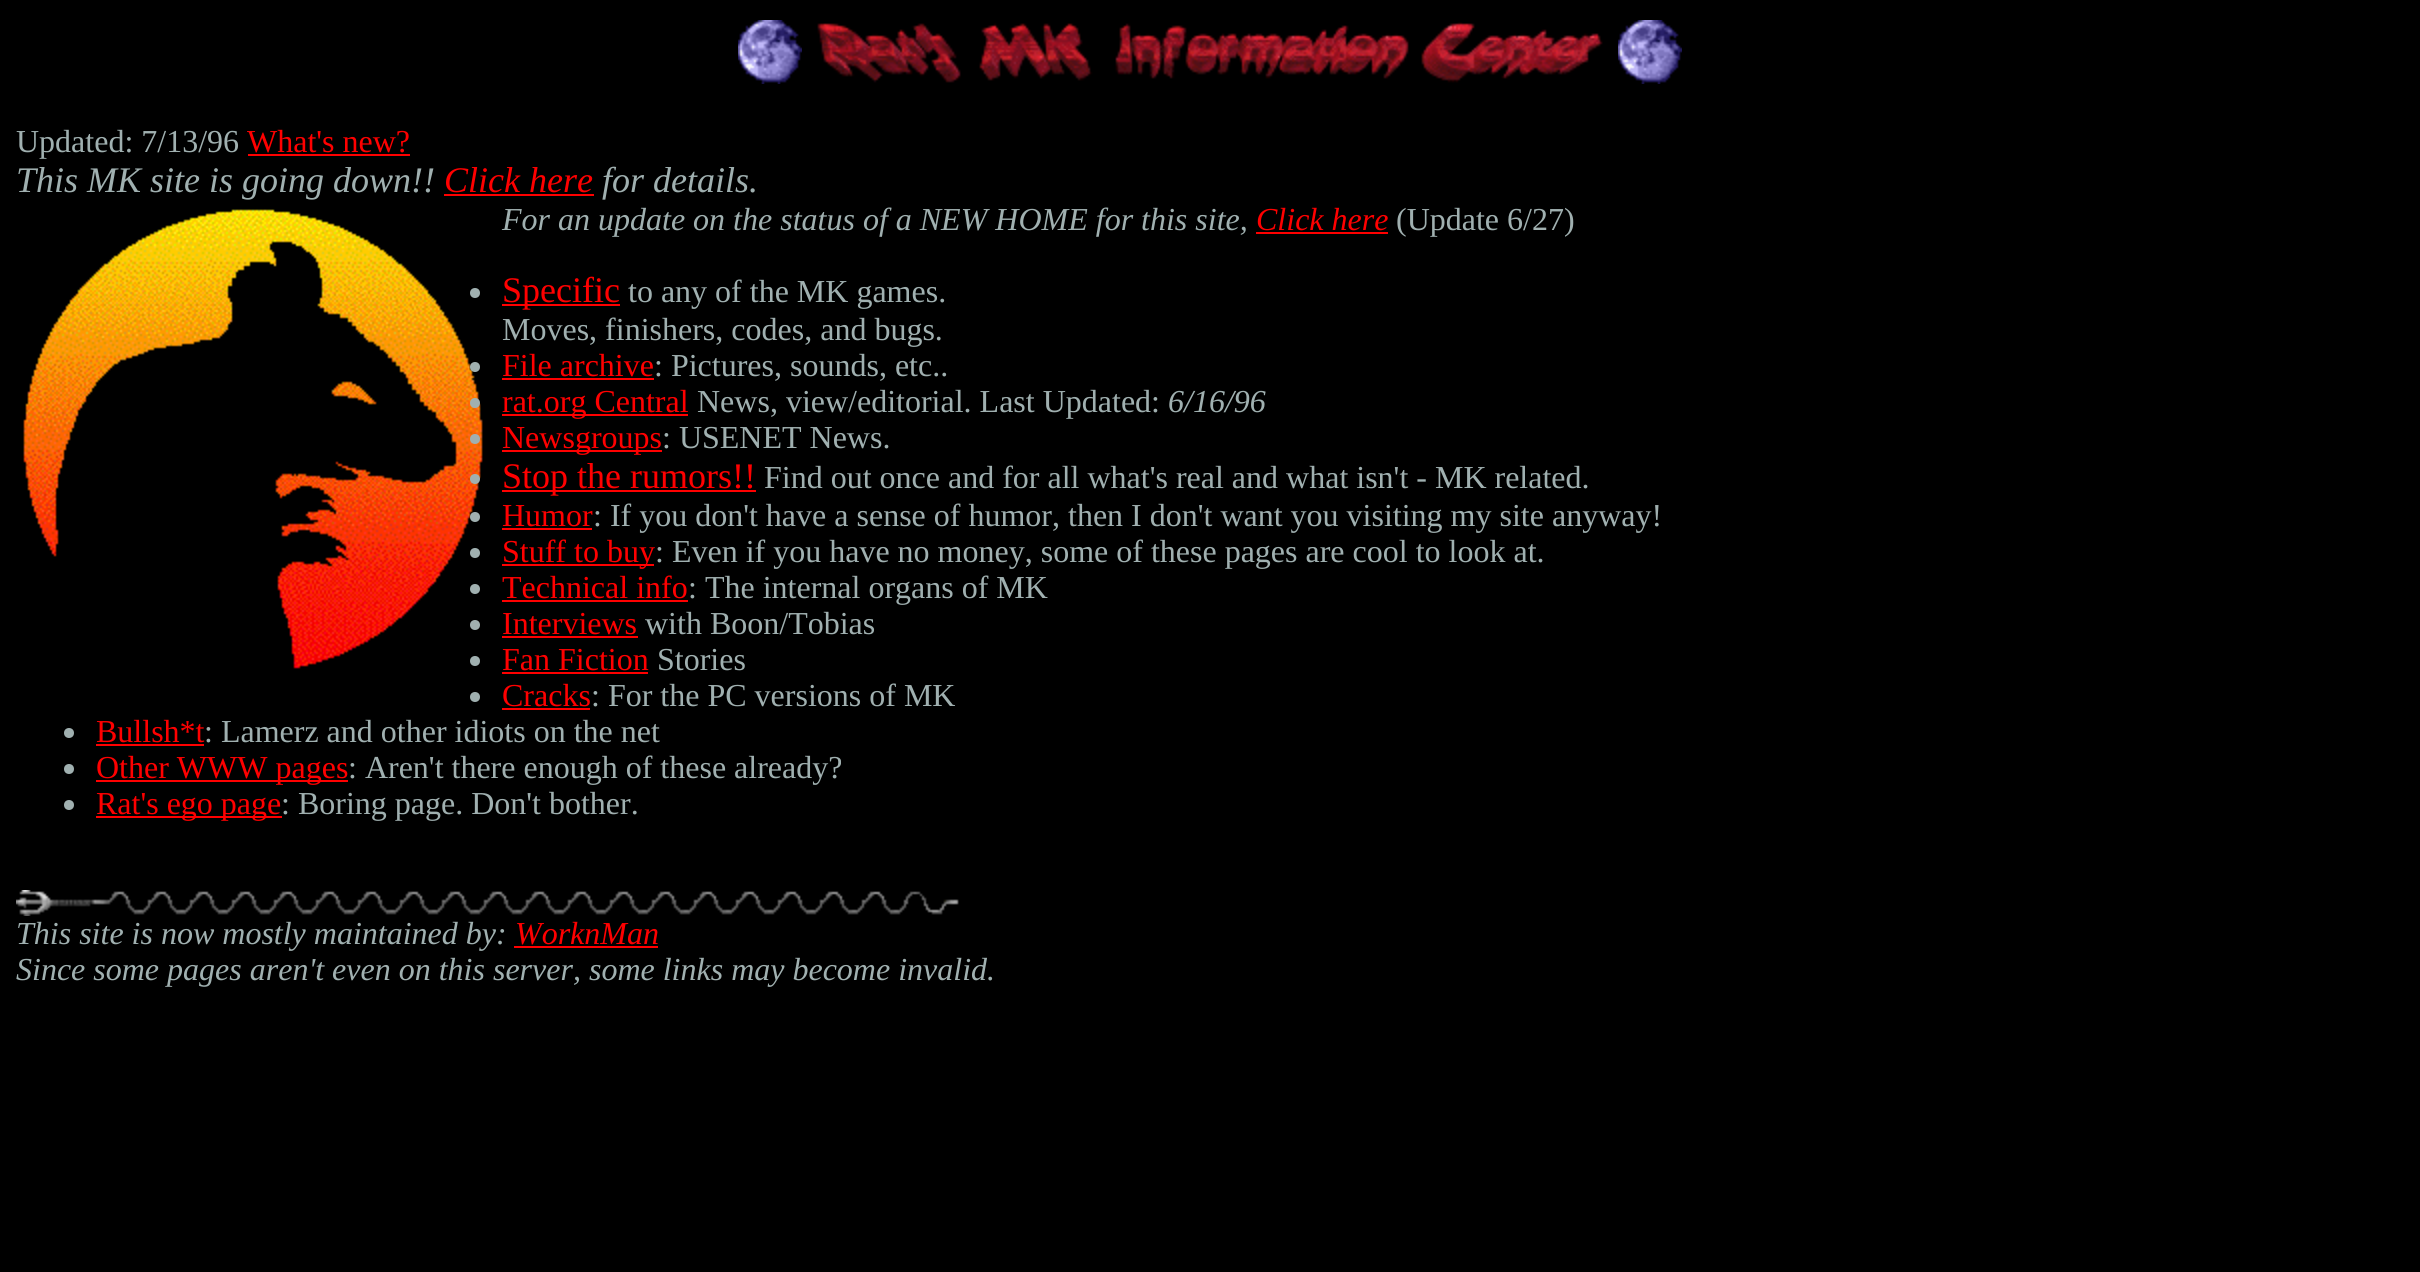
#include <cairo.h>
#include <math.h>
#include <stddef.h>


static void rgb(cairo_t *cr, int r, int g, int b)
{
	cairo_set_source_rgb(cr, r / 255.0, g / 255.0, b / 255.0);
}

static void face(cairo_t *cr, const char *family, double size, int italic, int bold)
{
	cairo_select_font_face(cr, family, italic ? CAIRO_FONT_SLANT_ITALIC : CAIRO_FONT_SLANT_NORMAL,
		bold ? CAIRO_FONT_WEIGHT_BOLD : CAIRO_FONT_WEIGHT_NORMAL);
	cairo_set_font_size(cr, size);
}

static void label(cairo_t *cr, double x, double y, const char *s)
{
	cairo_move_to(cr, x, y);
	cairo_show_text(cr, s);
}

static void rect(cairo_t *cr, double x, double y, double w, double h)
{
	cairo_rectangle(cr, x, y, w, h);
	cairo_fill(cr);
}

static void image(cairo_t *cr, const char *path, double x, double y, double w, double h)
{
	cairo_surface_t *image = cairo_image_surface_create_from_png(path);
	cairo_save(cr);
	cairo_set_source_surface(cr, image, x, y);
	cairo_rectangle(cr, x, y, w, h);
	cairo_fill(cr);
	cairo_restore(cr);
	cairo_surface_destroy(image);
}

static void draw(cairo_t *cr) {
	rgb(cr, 0, 0, 0);
	cairo_paint(cr);
	image(cr, "image0.png", 738, 20, 64, 64);
	image(cr, "image1.png", 817, 22, 786, 61);
	image(cr, "image0.png", 1618, 20, 64, 64);
	face(cr, "Liberation Serif", 32, 0, 0);
	rgb(cr, 160, 176, 176);
	label(cr, 16, 152, "Updated: 7/13/96");
	rgb(cr, 255, 0, 0);
	label(cr, 247, 152, "What's new?");
	rect(cr, 248, 154, 162, 2);
	face(cr, "Liberation Serif", 36, 1, 0);
	rgb(cr, 160, 176, 176);
	label(cr, 16, 192, "This MK site is going down!!");
	rgb(cr, 255, 0, 0);
	label(cr, 444, 192, "Click here");
	rect(cr, 444, 194, 150, 2);
	rgb(cr, 160, 176, 176);
	label(cr, 602, 192, "for details.");
	image(cr, "image2.png", 23, 209, 460, 460);
	face(cr, "Liberation Serif", 32, 1, 0);
	label(cr, 502, 230, "For an update on the status of a NEW HOME for this site,");
	rgb(cr, 255, 0, 0);
	label(cr, 1256, 230, "Click here");
	rect(cr, 1256, 232, 132, 2);
	face(cr, "Liberation Serif", 32, 0, 0);
	rgb(cr, 160, 176, 176);
	label(cr, 1396, 230, "(Update 6/27)");
	cairo_new_path(cr);
	cairo_arc(cr, 475, 293, 5, 0, 2 * M_PI);
	cairo_fill(cr);
	rgb(cr, 255, 0, 0);
	rect(cr, 502, 304, 118, 2);
	face(cr, "Liberation Serif", 36, 0, 0);
	label(cr, 502, 302, "Specific");
	face(cr, "Liberation Serif", 32, 0, 0);
	rgb(cr, 160, 176, 176);
	label(cr, 628, 302, "to any of the MK games.");
	label(cr, 502, 340, "Moves, finishers, codes, and bugs.");
	cairo_new_path(cr);
	cairo_arc(cr, 475, 367, 5, 0, 2 * M_PI);
	cairo_fill(cr);
	rgb(cr, 255, 0, 0);
	label(cr, 502, 376, "File archive");
	rect(cr, 502, 378, 152, 2);
	rgb(cr, 160, 176, 176);
	label(cr, 654, 376, ": Pictures, sounds, etc..");
	cairo_new_path(cr);
	cairo_arc(cr, 475, 403, 5, 0, 2 * M_PI);
	cairo_fill(cr);
	rgb(cr, 255, 0, 0);
	rect(cr, 502, 414, 186, 2);
	label(cr, 502, 412, "rat.org Central");
	rgb(cr, 160, 176, 176);
	label(cr, 697, 412, "News, view/editorial. Last Updated:");
	face(cr, "Liberation Serif", 32, 1, 0);
	label(cr, 1168, 412, "6/16/96");
	cairo_new_path(cr);
	cairo_arc(cr, 475, 439, 5, 0, 2 * M_PI);
	cairo_fill(cr);
	rgb(cr, 255, 0, 0);
	rect(cr, 502, 450, 160, 2);
	face(cr, "Liberation Serif", 32, 0, 0);
	label(cr, 502, 448, "Newsgroups");
	rgb(cr, 160, 176, 176);
	label(cr, 662, 448, ": USENET News.");
	cairo_new_path(cr);
	cairo_arc(cr, 475, 479, 5, 0, 2 * M_PI);
	cairo_fill(cr);
	rgb(cr, 255, 0, 0);
	rect(cr, 502, 490, 254, 2);
	face(cr, "Liberation Serif", 36, 0, 0);
	label(cr, 502, 488, "Stop the rumors!!");
	face(cr, "Liberation Serif", 32, 0, 0);
	rgb(cr, 160, 176, 176);
	label(cr, 764, 488, "Find out once and for all what's real and what isn't - MK related.");
	cairo_new_path(cr);
	cairo_arc(cr, 475, 517, 5, 0, 2 * M_PI);
	cairo_fill(cr);
	rgb(cr, 255, 0, 0);
	label(cr, 502, 526, "Humor");
	rect(cr, 502, 528, 90, 2);
	rgb(cr, 160, 176, 176);
	label(cr, 593, 526, ": If you don't have a sense of humor, then I don't want you visiting my site anyway!");
	cairo_new_path(cr);
	cairo_arc(cr, 475, 553, 5, 0, 2 * M_PI);
	cairo_fill(cr);
	rgb(cr, 255, 0, 0);
	rect(cr, 502, 564, 152, 2);
	label(cr, 502, 562, "Stuff to buy");
	rgb(cr, 160, 176, 176);
	label(cr, 655, 562, ": Even if you have no money, some of these pages are cool to look at.");
	cairo_new_path(cr);
	cairo_arc(cr, 475, 589, 5, 0, 2 * M_PI);
	cairo_fill(cr);
	rgb(cr, 255, 0, 0);
	label(cr, 502, 598, "Technical info");
	rect(cr, 502, 600, 186, 2);
	rgb(cr, 160, 176, 176);
	label(cr, 688, 598, ": The internal organs of MK");
	cairo_new_path(cr);
	cairo_arc(cr, 475, 625, 5, 0, 2 * M_PI);
	cairo_fill(cr);
	rgb(cr, 255, 0, 0);
	label(cr, 502, 634, "Interviews");
	rect(cr, 502, 636, 136, 2);
	rgb(cr, 160, 176, 176);
	label(cr, 645, 634, "with Boon/Tobias");
	cairo_new_path(cr);
	cairo_arc(cr, 475, 661, 5, 0, 2 * M_PI);
	cairo_fill(cr);
	rgb(cr, 255, 0, 0);
	label(cr, 502, 670, "Fan Fiction");
	rect(cr, 502, 672, 146, 2);
	rgb(cr, 160, 176, 176);
	label(cr, 657, 670, "Stories");
	cairo_new_path(cr);
	cairo_arc(cr, 475, 697, 5, 0, 2 * M_PI);
	cairo_fill(cr);
	rgb(cr, 255, 0, 0);
	label(cr, 502, 706, "Cracks");
	rect(cr, 502, 708, 88, 2);
	rgb(cr, 160, 176, 176);
	label(cr, 591, 706, ": For the PC versions of MK");
	cairo_new_path(cr);
	cairo_arc(cr, 69, 733, 5, 0, 2 * M_PI);
	cairo_fill(cr);
	rgb(cr, 255, 0, 0);
	label(cr, 96, 742, "Bullsh*t");
	rect(cr, 96, 744, 108, 2);
	rgb(cr, 160, 176, 176);
	label(cr, 204, 742, ": Lamerz and other idiots on the net");
	cairo_new_path(cr);
	cairo_arc(cr, 69, 769, 5, 0, 2 * M_PI);
	cairo_fill(cr);
	rgb(cr, 255, 0, 0);
	rect(cr, 96, 780, 252, 2);
	label(cr, 96, 778, "Other WWW pages");
	rgb(cr, 160, 176, 176);
	label(cr, 348, 778, ": Aren't there enough of these already?");
	cairo_new_path(cr);
	cairo_arc(cr, 69, 805, 5, 0, 2 * M_PI);
	cairo_fill(cr);
	rgb(cr, 255, 0, 0);
	rect(cr, 96, 816, 186, 2);
	label(cr, 96, 814, "Rat's ego page");
	rgb(cr, 160, 176, 176);
	label(cr, 281, 814, ": Boring page. Don't bother.");
	image(cr, "image3.png", 16, 890, 943, 26);
	face(cr, "Liberation Serif", 32, 1, 0);
	label(cr, 16, 944, "This site is now mostly maintained by:");
	rgb(cr, 255, 0, 0);
	label(cr, 515, 944, "WorknMan");
	rect(cr, 514, 946, 144, 2);
	rgb(cr, 160, 176, 176);
	label(cr, 16, 980, "Since some pages aren't even on this server, some links may become invalid.");
}

int main(void) {
	cairo_surface_t *surface = cairo_image_surface_create(CAIRO_FORMAT_RGB24, 2420, 1272);
	cairo_t *cr = cairo_create(surface);
	cairo_font_options_t *options = cairo_font_options_create();
	cairo_font_options_set_hint_metrics(options, CAIRO_HINT_METRICS_OFF);
	cairo_font_options_set_hint_style(options, CAIRO_HINT_STYLE_NONE);
	cairo_set_font_options(cr, options);
	cairo_set_miter_limit(cr, 4);
	draw(cr);
	cairo_surface_write_to_png(surface, "render.png");
	cairo_font_options_destroy(options);
	cairo_destroy(cr);
	cairo_surface_destroy(surface);
	return 0;
}
